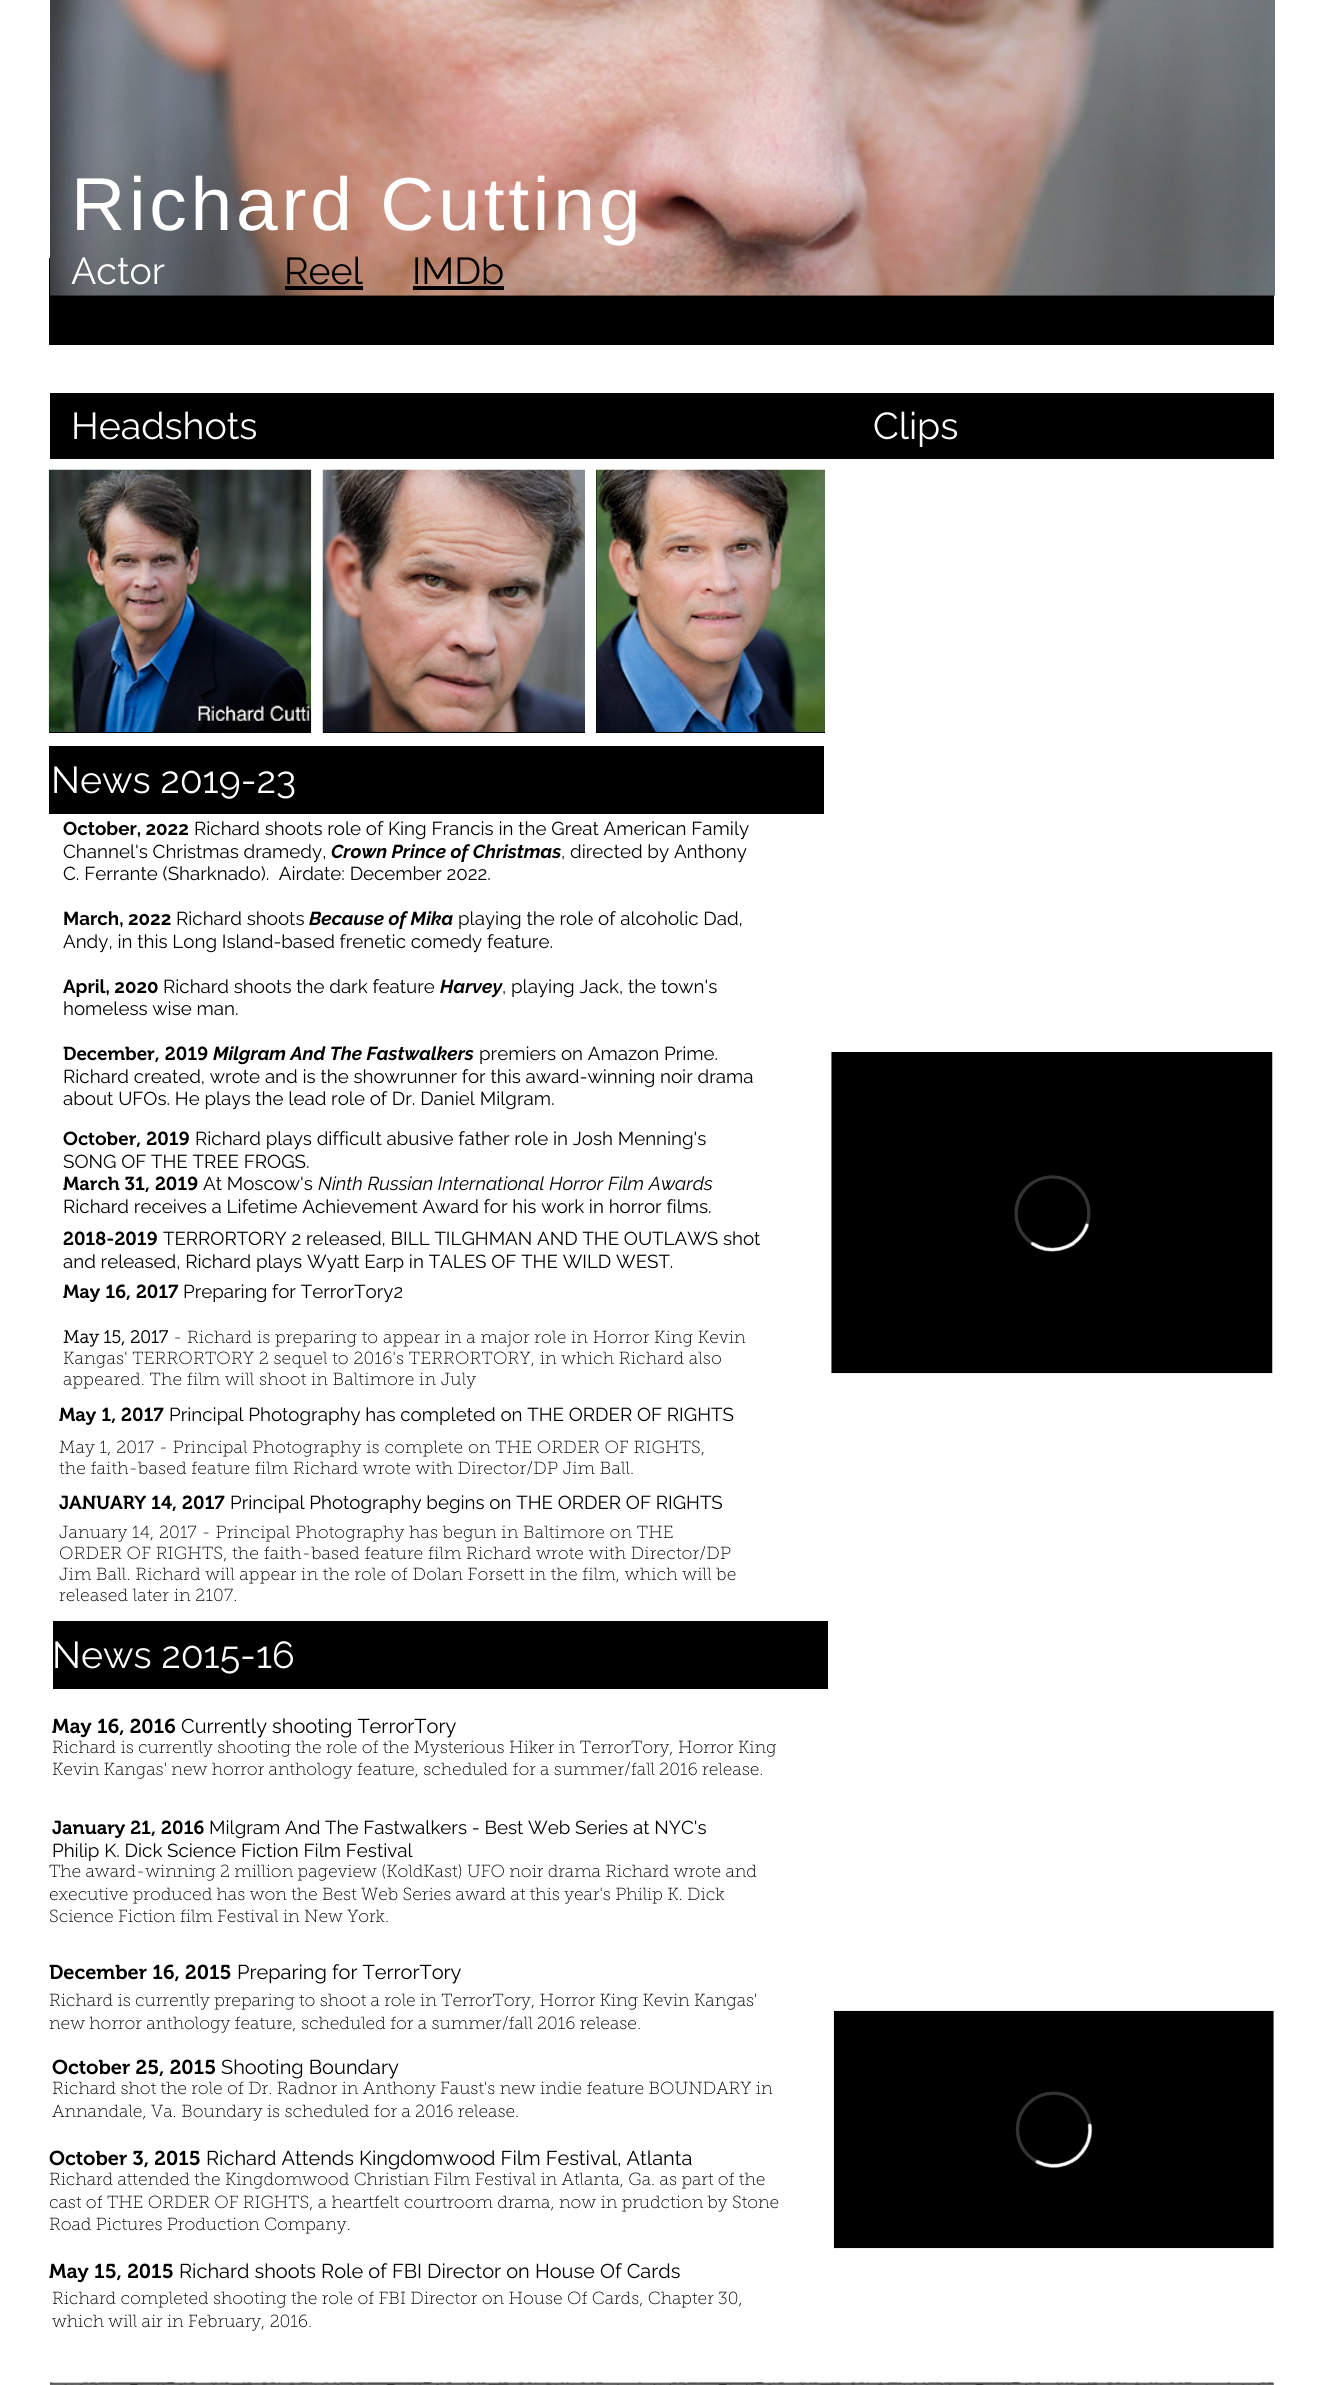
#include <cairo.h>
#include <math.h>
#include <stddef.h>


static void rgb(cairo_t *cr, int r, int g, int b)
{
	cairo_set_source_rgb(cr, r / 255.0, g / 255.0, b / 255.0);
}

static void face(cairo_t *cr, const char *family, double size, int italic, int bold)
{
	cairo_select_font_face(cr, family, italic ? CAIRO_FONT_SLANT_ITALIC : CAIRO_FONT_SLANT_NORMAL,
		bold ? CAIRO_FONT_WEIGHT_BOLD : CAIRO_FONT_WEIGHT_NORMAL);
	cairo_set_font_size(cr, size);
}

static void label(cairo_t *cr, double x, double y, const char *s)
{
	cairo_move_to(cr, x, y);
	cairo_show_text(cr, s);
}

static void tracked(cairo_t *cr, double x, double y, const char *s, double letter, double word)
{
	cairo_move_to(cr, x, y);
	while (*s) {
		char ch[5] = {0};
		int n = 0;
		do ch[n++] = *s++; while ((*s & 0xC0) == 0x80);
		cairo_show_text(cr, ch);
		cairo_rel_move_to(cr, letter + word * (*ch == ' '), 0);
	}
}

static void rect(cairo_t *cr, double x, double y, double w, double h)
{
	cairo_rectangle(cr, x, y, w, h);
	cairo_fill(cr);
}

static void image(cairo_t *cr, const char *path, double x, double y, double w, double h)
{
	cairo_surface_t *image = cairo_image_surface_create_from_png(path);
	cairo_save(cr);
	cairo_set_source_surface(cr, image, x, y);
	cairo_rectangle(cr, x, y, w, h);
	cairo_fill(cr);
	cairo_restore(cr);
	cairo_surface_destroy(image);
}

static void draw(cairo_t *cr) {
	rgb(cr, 255, 255, 255);
	cairo_paint(cr);
	rgb(cr, 0, 0, 0);
	rect(cr, 49, 258, 1225, 87);
	image(cr, "image0.png", 50, 0, 1225, 296);
	face(cr, "Liberation Sans", 75, 0, 0);
	rgb(cr, 255, 255, 255);
	tracked(cr, 71, 230, "Richard Cutting", 3.75, 0);
	face(cr, "Raleway", 37.5, 0, 0);
	label(cr, 71, 284, "Actor");
	rgb(cr, 0, 0, 0);
	label(cr, 284, 284, "Reel");
	rect(cr, 285, 286, 78, 4);
	label(cr, 412, 284, "IMDb");
	rect(cr, 413, 286, 91, 4);
	rect(cr, 50, 393, 1224, 66);
	rgb(cr, 255, 255, 255);
	label(cr, 71, 439, "Headshots");
	label(cr, 873, 439, "Clips");
	rgb(cr, 0, 0, 0);
	rect(cr, 49, 732, 262, 1);
	image(cr, "image1.png", 48, 469, 264, 263);
	rect(cr, 323, 732, 262, 1);
	image(cr, "image2.png", 322, 469, 263, 263);
	rect(cr, 596, 470, 229, 263);
	image(cr, "image3.png", 596, 469, 229, 263);
	rect(cr, 49, 746, 775, 68);
	rgb(cr, 255, 255, 255);
	label(cr, 51, 793, "News 2019-23");
	face(cr, "Raleway", 18.75, 0, 1);
	rgb(cr, 0, 0, 0);
	label(cr, 63, 835, "October, 2022");
	face(cr, "Raleway", 18.75, 0, 0);
	label(cr, 194, 835, "Richard shoots role of King Francis in the Great American Family");
	label(cr, 63, 858, "Channel's Christmas dramedy,");
	face(cr, "Raleway", 18.75, 1, 1);
	label(cr, 331, 858, "Crown Prince of Christmas");
	face(cr, "Raleway", 18.75, 0, 0);
	label(cr, 561, 858, ", directed by Anthony");
	label(cr, 63, 880, "C. Ferrante (Sharknado).  Airdate: December 2022.");
	face(cr, "Raleway", 18.75, 0, 1);
	label(cr, 63, 925, "March, 2022");
	face(cr, "Raleway", 18.75, 0, 0);
	label(cr, 176, 925, "Richard shoots");
	face(cr, "Raleway", 18.75, 1, 1);
	label(cr, 309, 925, "Because of Mika");
	face(cr, "Raleway", 18.75, 0, 0);
	label(cr, 458, 925, "playing the role of alcoholic Dad,");
	label(cr, 63, 948, "Andy, in this Long Island-based frenetic comedy feature.");
	face(cr, "Raleway", 18.75, 0, 1);
	label(cr, 63, 993, "April, 2020");
	face(cr, "Raleway", 18.75, 0, 0);
	label(cr, 163, 993, "Richard shoots the dark feature");
	face(cr, "Raleway", 18.75, 1, 1);
	label(cr, 440, 993, "Harvey");
	face(cr, "Raleway", 18.75, 0, 0);
	label(cr, 502, 993, ", playing Jack, the town's");
	label(cr, 63, 1015, "homeless wise man.");
	face(cr, "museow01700 SemiBold", 18.75, 0, 0);
	label(cr, 63, 1060, "December, 2019");
	face(cr, "Raleway", 18.75, 1, 1);
	label(cr, 213, 1060, "Milgram And The Fastwalkers");
	face(cr, "Raleway", 18.75, 0, 0);
	label(cr, 479, 1060, "premiers on Amazon Prime.");
	label(cr, 63, 1083, "Richard created, wrote and is the showrunner for this award-winning noir drama");
	label(cr, 63, 1105, "about UFOs. He plays the lead role of Dr. Daniel Milgram.");
	face(cr, "museow01700 SemiBold", 18.75, 0, 0);
	label(cr, 63, 1145, "October, 2019");
	face(cr, "Raleway", 18.75, 0, 0);
	label(cr, 195, 1145, "Richard plays difficult abusive father role in Josh Menning's");
	label(cr, 63, 1168, "SONG OF THE TREE FROGS.");
	image(cr, "image4.png", 831, 1052, 442, 322);
	face(cr, "museow01700 SemiBold", 18.75, 0, 0);
	label(cr, 63, 1190, "March 31, 2019");
	face(cr, "Raleway", 18.75, 0, 0);
	label(cr, 203, 1190, "At Moscow's");
	face(cr, "Raleway", 18.75, 1, 0);
	label(cr, 318, 1190, "Ninth Russian International Horror Film Awards");
	face(cr, "Raleway", 18.75, 0, 0);
	label(cr, 63, 1213, "Richard receives a Lifetime Achievement Award for his work in horror films.");
	face(cr, "museow01700 SemiBold", 18.75, 0, 0);
	label(cr, 63, 1245, "2018-2019");
	face(cr, "Raleway", 18.75, 0, 0);
	label(cr, 163, 1245, "TERRORTORY 2 released, BILL TILGHMAN AND THE OUTLAWS shot");
	label(cr, 63, 1268, "and released, Richard plays Wyatt Earp in TALES OF THE WILD WEST.");
	face(cr, "museow01700 SemiBold", 18.75, 0, 0);
	label(cr, 63, 1298, "May 16, 2017");
	face(cr, "Raleway", 18.75, 0, 0);
	label(cr, 183, 1298, "Preparing for TerrorTory2");
	face(cr, "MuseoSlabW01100", 17.5, 0, 1);
	tracked(cr, 63, 1343, "May 15, 2017", 0.18, 0);
	face(cr, "MuseoSlabW01100 Thin", 17.5, 0, 0);
	tracked(cr, 173, 1343, "- Richard is preparing to appear in a major role in Horror King Kevin", 0.18, 0);
	tracked(cr, 63, 1364, "Kangas' TERRORTORY 2 sequel to 2016's TERRORTORY, in which Richard also", 0.18, 0);
	tracked(cr, 63, 1385, "appeared. The film will shoot in Baltimore in July", 0.18, 0);
	face(cr, "museow01700 SemiBold", 18.75, 0, 0);
	label(cr, 59, 1421, "May 1, 2017");
	face(cr, "Raleway", 18.75, 0, 0);
	label(cr, 169, 1421, "Principal Photography has completed on THE ORDER OF RIGHTS");
	face(cr, "MuseoSlabW01100 Thin", 17.5, 0, 0);
	tracked(cr, 59, 1453, "May 1, 2017 - Principal Photography is complete on THE ORDER OF RIGHTS,", 0.18, 0);
	tracked(cr, 59, 1474, "the faith-based feature film Richard wrote with Director/DP Jim Ball.", 0.18, 0);
	face(cr, "museow01700 SemiBold", 18.75, 0, 0);
	label(cr, 59, 1509, "JANUARY 14, 2017");
	face(cr, "Raleway", 18.75, 0, 0);
	label(cr, 230, 1509, "Principal Photography begins on THE ORDER OF RIGHTS");
	face(cr, "MuseoSlabW01100 Thin", 17.5, 0, 0);
	tracked(cr, 59, 1538, "January 14, 2017 - Principal Photography has begun in Baltimore on THE", 0.18, 0);
	tracked(cr, 59, 1559, "ORDER OF RIGHTS, the faith-based feature film Richard wrote with Director/DP", 0.18, 0);
	tracked(cr, 59, 1580, "Jim Ball. Richard will appear in the role of Dolan Forsett in the film, which will be", 0.18, 0);
	tracked(cr, 59, 1601, "released later in 2107.", 0.18, 0);
	rect(cr, 53, 1621, 775, 68);
	face(cr, "Raleway", 37.5, 0, 0);
	rgb(cr, 255, 255, 255);
	label(cr, 52, 1668, "News 2015-16");
	face(cr, "museow01700 SemiBold", 20, 0, 0);
	rgb(cr, 0, 0, 0);
	label(cr, 52, 1733, "May 16, 2016");
	face(cr, "Raleway", 20, 0, 0);
	label(cr, 181, 1733, "Currently shooting TerrorTory");
	face(cr, "MuseoSlabW01100 Thin", 17.5, 0, 0);
	label(cr, 52, 1753, "Richard is currently shooting the role of the Mysterious Hiker in TerrorTory, Horror King");
	label(cr, 52, 1775, "Kevin Kangas' new horror anthology feature, scheduled for a summer/fall 2016 release.");
	face(cr, "museow01700 SemiBold", 18.75, 0, 0);
	label(cr, 52, 1834, "January 21, 2016");
	face(cr, "Raleway", 18.75, 0, 0);
	label(cr, 209, 1834, "Milgram And The Fastwalkers - Best Web Series at NYC's");
	label(cr, 52, 1857, "Philip K. Dick Science Fiction Film Festival");
	face(cr, "MuseoSlabW01100 Thin", 17.5, 0, 0);
	label(cr, 49, 1877, "The award-winning 2 million pageview (KoldKast) UFO noir drama Richard wrote and");
	label(cr, 49, 1900, "executive produced has won the Best Web Series award at this year's Philip K. Dick");
	label(cr, 49, 1922, "Science Fiction film Festival in New York.");
	face(cr, "museow01700 SemiBold", 20, 0, 0);
	label(cr, 49, 1979, "December 16, 2015");
	face(cr, "Raleway", 20, 0, 0);
	label(cr, 237, 1979, "Preparing for TerrorTory");
	face(cr, "MuseoSlabW01100 Thin", 17.5, 0, 0);
	label(cr, 49, 2006, "Richard is currently preparing to shoot a role in TerrorTory, Horror King Kevin Kangas'");
	label(cr, 49, 2029, "new horror anthology feature, scheduled for a summer/fall 2016 release.");
	image(cr, "image5.png", 833, 2010, 441, 239);
	face(cr, "museow01700 SemiBold", 20, 0, 0);
	label(cr, 52, 2074, "October 25, 2015");
	face(cr, "Raleway", 20, 0, 0);
	label(cr, 221, 2074, "Shooting Boundary");
	face(cr, "MuseoSlabW01100 Thin", 17.5, 0, 0);
	label(cr, 52, 2094, "Richard shot the role of Dr. Radnor in Anthony Faust's new indie feature BOUNDARY in");
	label(cr, 52, 2117, "Annandale, Va. Boundary is scheduled for a 2016 release.");
	face(cr, "museow01700 SemiBold", 20, 0, 0);
	label(cr, 49, 2165, "October 3, 2015");
	face(cr, "Raleway", 20, 0, 0);
	label(cr, 206, 2165, "Richard Attends Kingdomwood Film Festival, Atlanta");
	face(cr, "MuseoSlabW01100 Thin", 17.5, 0, 0);
	label(cr, 49, 2185, "Richard attended the Kingdomwood Christian Film Festival in Atlanta, Ga. as part of the");
	label(cr, 49, 2208, "cast of THE ORDER OF RIGHTS, a heartfelt courtroom drama, now in prudction by Stone");
	label(cr, 49, 2230, "Road Pictures Production Company.");
	face(cr, "museow01700 SemiBold", 20, 0, 0);
	label(cr, 49, 2278, "May 15, 2015");
	face(cr, "Raleway", 20, 0, 0);
	label(cr, 179, 2278, "Richard shoots Role of FBI Director on House Of Cards");
	face(cr, "MuseoSlabW01100 Thin", 17.5, 0, 0);
	label(cr, 52, 2304, "Richard completed shooting the role of FBI Director on House Of Cards, Chapter 30,");
	label(cr, 52, 2327, "which will air in February, 2016.");
	image(cr, "image6.png", 50, 2382, 1224, 3);
}

int main(void) {
	cairo_surface_t *surface = cairo_image_surface_create(CAIRO_FORMAT_RGB24, 1321, 2385);
	cairo_t *cr = cairo_create(surface);
	cairo_font_options_t *options = cairo_font_options_create();
	cairo_font_options_set_hint_metrics(options, CAIRO_HINT_METRICS_OFF);
	cairo_font_options_set_hint_style(options, CAIRO_HINT_STYLE_NONE);
	cairo_set_font_options(cr, options);
	cairo_set_miter_limit(cr, 4);
	draw(cr);
	cairo_surface_write_to_png(surface, "render.png");
	cairo_font_options_destroy(options);
	cairo_destroy(cr);
	cairo_surface_destroy(surface);
	return 0;
}
